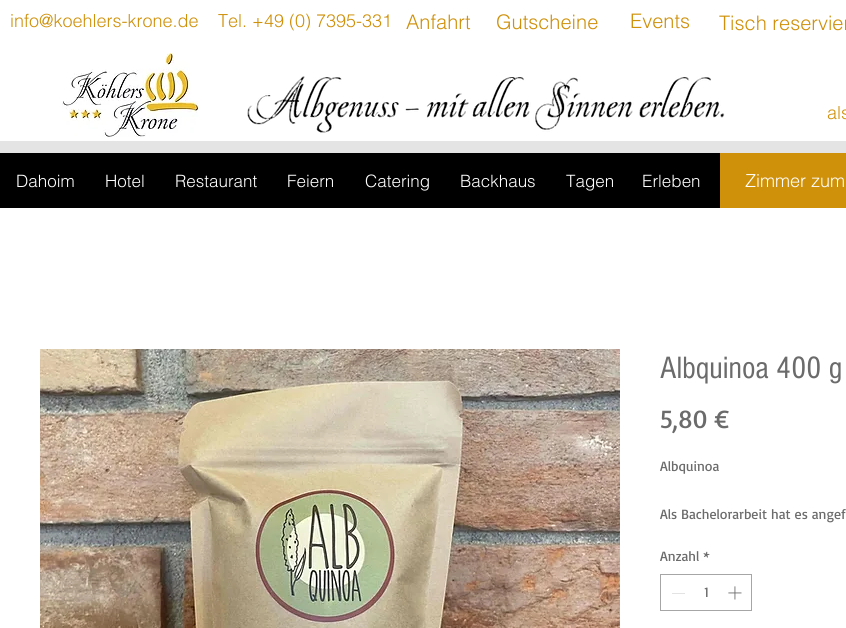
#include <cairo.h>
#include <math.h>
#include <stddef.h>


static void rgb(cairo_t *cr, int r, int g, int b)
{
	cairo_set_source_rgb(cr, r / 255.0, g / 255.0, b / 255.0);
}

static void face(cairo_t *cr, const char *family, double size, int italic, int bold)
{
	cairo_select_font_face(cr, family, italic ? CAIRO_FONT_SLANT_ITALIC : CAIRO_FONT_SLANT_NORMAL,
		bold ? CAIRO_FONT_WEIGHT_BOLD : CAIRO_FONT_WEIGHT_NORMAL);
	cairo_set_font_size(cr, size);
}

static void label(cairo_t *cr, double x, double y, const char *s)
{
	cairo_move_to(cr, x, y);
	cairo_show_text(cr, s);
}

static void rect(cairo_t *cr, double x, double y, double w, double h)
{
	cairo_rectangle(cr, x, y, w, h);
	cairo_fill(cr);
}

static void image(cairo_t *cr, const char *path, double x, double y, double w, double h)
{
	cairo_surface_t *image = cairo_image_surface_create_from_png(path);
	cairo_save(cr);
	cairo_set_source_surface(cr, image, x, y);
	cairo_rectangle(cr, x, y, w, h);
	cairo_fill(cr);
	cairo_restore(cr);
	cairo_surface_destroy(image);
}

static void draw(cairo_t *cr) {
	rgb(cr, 228, 228, 228);
	cairo_paint(cr);
	rgb(cr, 255, 255, 255);
	rect(cr, 0, 0, 846, 141);
	face(cr, "helvetica Light", 18, 0, 0);
	rgb(cr, 207, 144, 10);
	label(cr, 10, 27, "info@koehlers-krone.de");
	label(cr, 218, 27, "Tel. +49 (0) 7395-331");
	face(cr, "helvetica Light", 20, 0, 0);
	label(cr, 406, 29, "Anfahrt");
	label(cr, 496, 29, "Gutscheine");
	label(cr, 630, 28, "Events");
	label(cr, 719, 30, "Tisch reservier");
	image(cr, "image0.png", 62, 53, 137, 84);
	image(cr, "image1.png", 247, 76, 478, 57);
	face(cr, "helvetica Light", 18, 0, 0);
	label(cr, 827, 119, "als");
	rgb(cr, 0, 0, 0);
	rect(cr, 0, 153, 720, 55);
	face(cr, "helvetica Light", 17, 0, 0);
	rgb(cr, 255, 255, 255);
	label(cr, 16, 187, "Dahoim");
	label(cr, 105, 187, "Hotel");
	label(cr, 175, 187, "Restaurant");
	label(cr, 287, 187, "Feiern");
	label(cr, 365, 187, "Catering");
	label(cr, 460, 187, "Backhaus");
	label(cr, 566, 187, "Tagen");
	label(cr, 642, 187, "Erleben");
	rgb(cr, 207, 144, 10);
	rect(cr, 720, 153, 126, 55);
	face(cr, "helvetica Light", 18, 0, 0);
	rgb(cr, 255, 255, 255);
	label(cr, 745, 187, "Zimmer zum");
	rect(cr, 0, 208, 846, 420);
	image(cr, "image2.png", 40, 349, 580, 279);
	face(cr, "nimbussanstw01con", 32, 0, 0);
	rgb(cr, 107, 107, 107);
	label(cr, 660, 378, "Albquinoa 400 g");
	face(cr, "Basic", 26, 0, 0);
	label(cr, 660, 428, "5,80 €");
	face(cr, "Basic", 14, 0, 0);
	label(cr, 660, 471, "Albquinoa");
	label(cr, 660, 519, "Als Bachelorarbeit hat es angef");
	label(cr, 660, 561, "Anzahl *");
	cairo_rectangle(cr, 660.5, 574.5, 91, 36);
	rgb(cr, 166, 166, 166);
	cairo_set_line_width(cr, 1);
	cairo_stroke(cr);
	rgb(cr, 227, 227, 227);
	rect(cr, 672, 593, 13, 1);
	rgb(cr, 107, 107, 107);
	label(cr, 704, 597, "1");
	image(cr, "image3.png", 728, 586, 14, 14);
}

int main(void) {
	cairo_surface_t *surface = cairo_image_surface_create(CAIRO_FORMAT_RGB24, 846, 628);
	cairo_t *cr = cairo_create(surface);
	cairo_font_options_t *options = cairo_font_options_create();
	cairo_font_options_set_hint_metrics(options, CAIRO_HINT_METRICS_OFF);
	cairo_font_options_set_hint_style(options, CAIRO_HINT_STYLE_NONE);
	cairo_set_font_options(cr, options);
	cairo_set_miter_limit(cr, 4);
	draw(cr);
	cairo_surface_write_to_png(surface, "render.png");
	cairo_font_options_destroy(options);
	cairo_destroy(cr);
	cairo_surface_destroy(surface);
	return 0;
}
